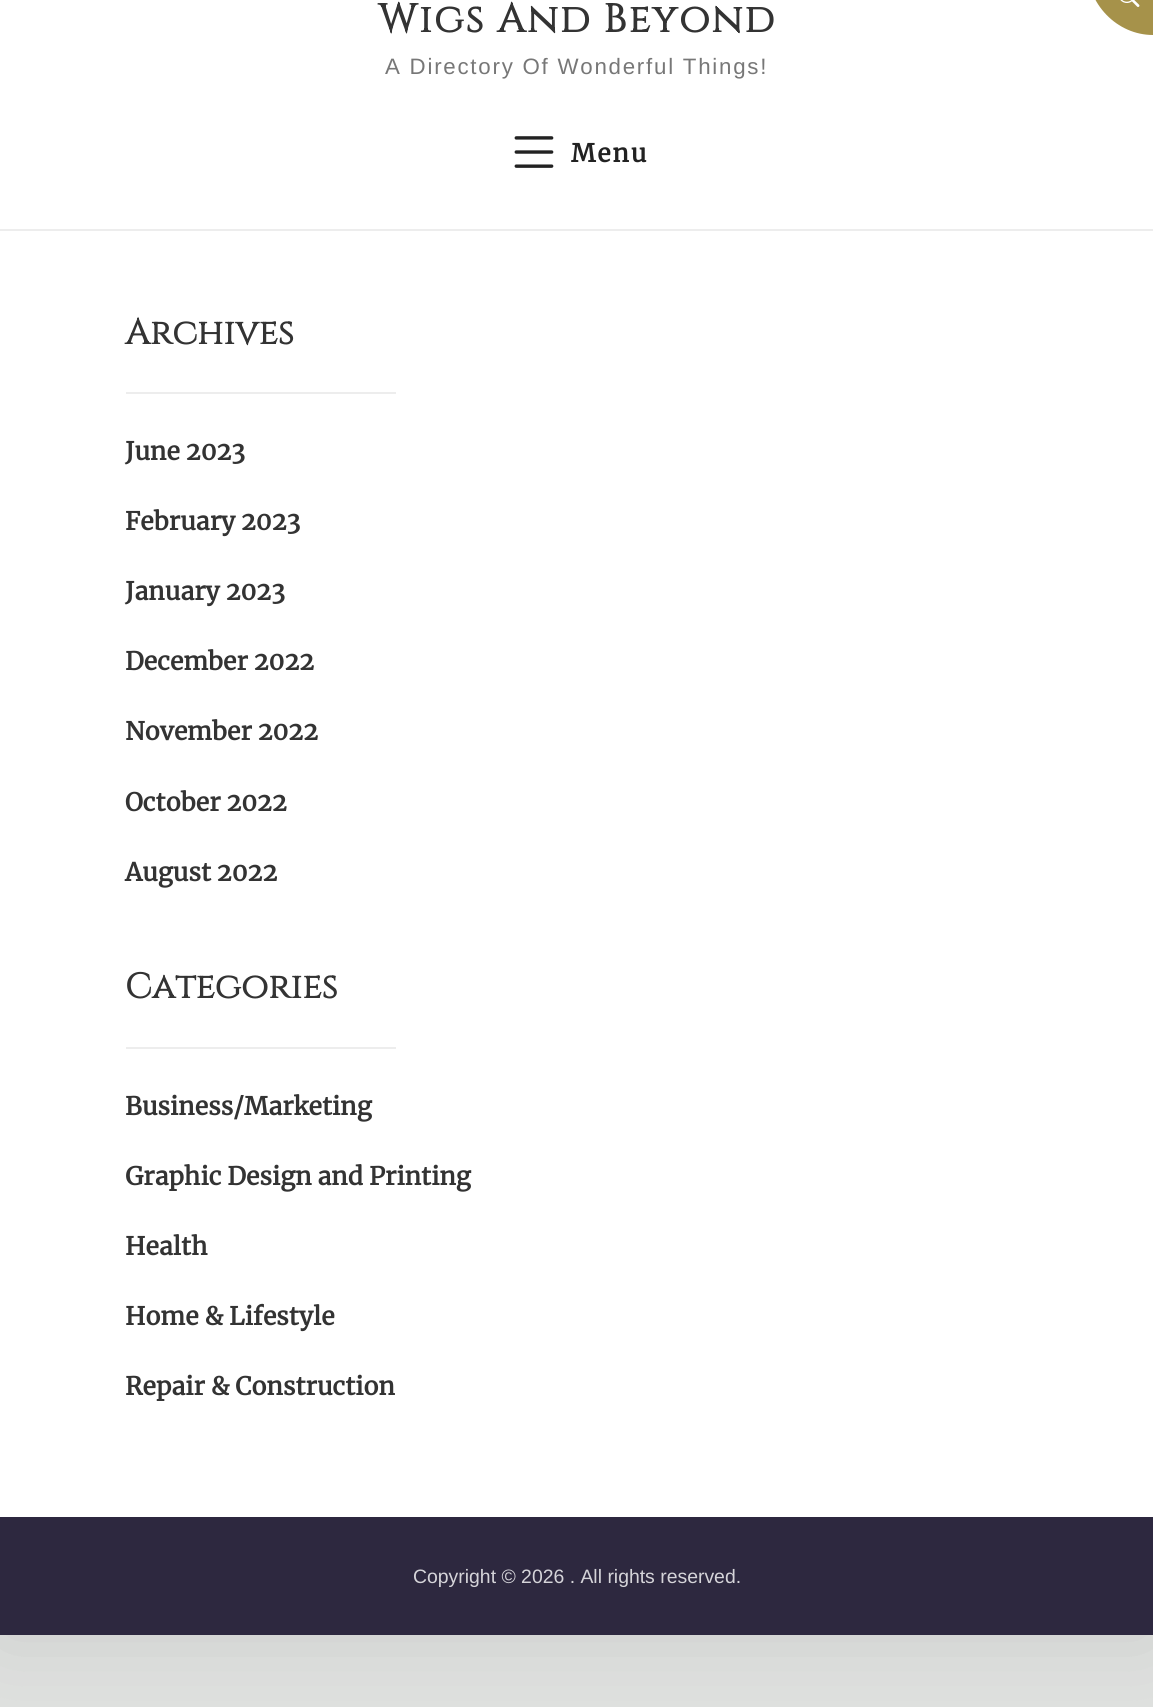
#include <cairo.h>
#include <math.h>
#include <stddef.h>


static void rgb(cairo_t *cr, int r, int g, int b)
{
	cairo_set_source_rgb(cr, r / 255.0, g / 255.0, b / 255.0);
}

static void face(cairo_t *cr, const char *family, double size, int italic, int bold)
{
	cairo_select_font_face(cr, family, italic ? CAIRO_FONT_SLANT_ITALIC : CAIRO_FONT_SLANT_NORMAL,
		bold ? CAIRO_FONT_WEIGHT_BOLD : CAIRO_FONT_WEIGHT_NORMAL);
	cairo_set_font_size(cr, size);
}

static void label(cairo_t *cr, double x, double y, const char *s)
{
	cairo_move_to(cr, x, y);
	cairo_show_text(cr, s);
}

static void tracked(cairo_t *cr, double x, double y, const char *s, double letter, double word)
{
	cairo_move_to(cr, x, y);
	while (*s) {
		char ch[5] = {0};
		int n = 0;
		do ch[n++] = *s++; while ((*s & 0xC0) == 0x80);
		cairo_show_text(cr, ch);
		cairo_rel_move_to(cr, letter + word * (*ch == ' '), 0);
	}
}

static void rect(cairo_t *cr, double x, double y, double w, double h)
{
	cairo_rectangle(cr, x, y, w, h);
	cairo_fill(cr);
}

static void rrect(cairo_t *cr, double x, double y, double w, double h, double r)
{
	cairo_new_sub_path(cr);
	cairo_arc(cr, x + w - r, y + h - r, r, 0, M_PI / 2);
	cairo_arc(cr, x + r, y + h - r, r, M_PI / 2, M_PI);
	cairo_arc(cr, x + r, y + r, r, M_PI, 1.5 * M_PI);
	cairo_arc(cr, x + w - r, y + r, r, 1.5 * M_PI, 2 * M_PI);
	cairo_close_path(cr);
}

static void soft_shadow(cairo_t *cr, double x, double y, double w, double h, double r, double blur, double alpha)
{
	cairo_push_group_with_content(cr, CAIRO_CONTENT_ALPHA);
	cairo_set_operator(cr, CAIRO_OPERATOR_SOURCE);
	for (int i = 15; i >= -15 && fmin(w, h) + blur * i / 3 > 0; i -= 2) {
		double e = blur * i / 6;
		cairo_set_source_rgba(cr, 0, 0, 0, alpha * erfc((i - 1) / 8.5) / 2);
		rrect(cr, x - e, y - e, w + 2 * e, h + 2 * e, fmax(0, fmin(r + e + blur * .6, fmin(w, h) / 2 + e)));
		cairo_fill(cr);
	}
	cairo_pattern_t *soft = cairo_pop_group(cr);
	cairo_mask(cr, soft);
	cairo_pattern_destroy(soft);
}

static void image(cairo_t *cr, const char *path, double x, double y, double w, double h)
{
	cairo_surface_t *image = cairo_image_surface_create_from_png(path);
	cairo_save(cr);
	cairo_set_source_surface(cr, image, x, y);
	cairo_rectangle(cr, x, y, w, h);
	cairo_fill(cr);
	cairo_restore(cr);
	cairo_surface_destroy(image);
}

static void draw(cairo_t *cr) {
	rgb(cr, 223, 225, 223);
	cairo_paint(cr);
	rgb(cr, 0, 0, 0);
	soft_shadow(cr, 0, -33, 1153, 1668, 0, 44, 0.1);
	rgb(cr, 255, 255, 255);
	rect(cr, 0, 0, 1153, 1517);
	rgb(cr, 237, 237, 237);
	rect(cr, 0, 229, 1153, 2);
	face(cr, "Cinzel", 39.75, 0, 1);
	rgb(cr, 51, 51, 51);
	tracked(cr, 378, 32, "Wigs And Beyond", 1.75, 0);
	face(cr, "Liberation Sans", 22.3, 0, 0);
	rgb(cr, 119, 119, 119);
	tracked(cr, 385, 74, "A Directory Of Wonderful Things!", 1.75, 0);
	rgb(cr, 166, 146, 74);
	cairo_new_path(cr);
	cairo_move_to(cr, 1087, -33);
	cairo_line_to(cr, 1153, -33);
	cairo_line_to(cr, 1153, 35);
	cairo_curve_to(cr, 1117, 35, 1087, 4, 1087, -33);
	cairo_close_path(cr);
	cairo_fill(cr);
	image(cr, "image0.png", 1120, 0, 20, 7);
	image(cr, "image1.png", 514, 136, 40, 32);
	face(cr, "Merriweather", 24.75, 0, 1);
	rgb(cr, 34, 34, 34);
	tracked(cr, 571, 162, "Menu", 1.75, 0);
	face(cr, "Cinzel", 35.25, 0, 1);
	rgb(cr, 51, 51, 51);
	label(cr, 125, 344, "Archives");
	rgb(cr, 237, 237, 237);
	rect(cr, 126, 392, 270, 2);
	face(cr, "Merriweather", 24.75, 0, 1);
	rgb(cr, 51, 51, 51);
	label(cr, 125, 460, "June 2023");
	label(cr, 125, 530, "February 2023");
	label(cr, 125, 600, "January 2023");
	label(cr, 125, 670, "December 2022");
	label(cr, 125, 740, "November 2022");
	label(cr, 125, 811, "October 2022");
	label(cr, 125, 881, "August 2022");
	face(cr, "Cinzel", 35.25, 0, 1);
	label(cr, 125, 998, "Categories");
	rgb(cr, 237, 237, 237);
	rect(cr, 126, 1047, 270, 2);
	face(cr, "Merriweather", 24.75, 0, 1);
	rgb(cr, 51, 51, 51);
	label(cr, 125, 1115, "Business/Marketing");
	label(cr, 125, 1185, "Graphic Design and Printing");
	label(cr, 125, 1255, "Health");
	label(cr, 125, 1325, "Home & Lifestyle");
	label(cr, 125, 1395, "Repair & Construction");
	rgb(cr, 45, 40, 63);
	rect(cr, 0, 1517, 1153, 118);
	face(cr, "Liberation Sans", 19.4, 0, 0);
	rgb(cr, 213, 212, 217);
	label(cr, 413, 1583, "Copyright © 2026 . All rights reserved.");
}

int main(void) {
	cairo_surface_t *surface = cairo_image_surface_create(CAIRO_FORMAT_RGB24, 1153, 1707);
	cairo_t *cr = cairo_create(surface);
	cairo_font_options_t *options = cairo_font_options_create();
	cairo_font_options_set_hint_metrics(options, CAIRO_HINT_METRICS_OFF);
	cairo_font_options_set_hint_style(options, CAIRO_HINT_STYLE_NONE);
	cairo_set_font_options(cr, options);
	cairo_set_miter_limit(cr, 4);
	draw(cr);
	cairo_surface_write_to_png(surface, "render.png");
	cairo_font_options_destroy(options);
	cairo_destroy(cr);
	cairo_surface_destroy(surface);
	return 0;
}
